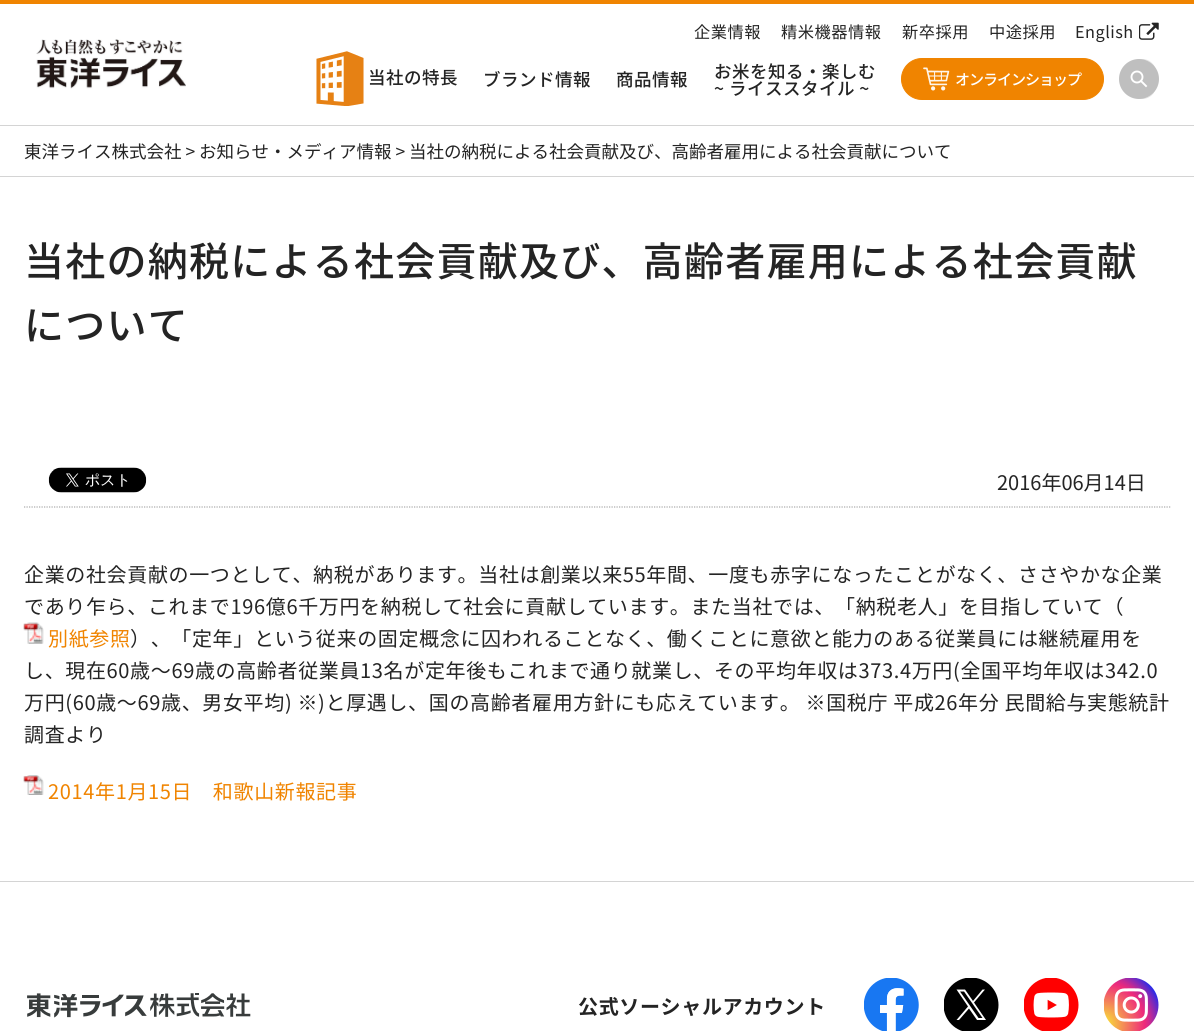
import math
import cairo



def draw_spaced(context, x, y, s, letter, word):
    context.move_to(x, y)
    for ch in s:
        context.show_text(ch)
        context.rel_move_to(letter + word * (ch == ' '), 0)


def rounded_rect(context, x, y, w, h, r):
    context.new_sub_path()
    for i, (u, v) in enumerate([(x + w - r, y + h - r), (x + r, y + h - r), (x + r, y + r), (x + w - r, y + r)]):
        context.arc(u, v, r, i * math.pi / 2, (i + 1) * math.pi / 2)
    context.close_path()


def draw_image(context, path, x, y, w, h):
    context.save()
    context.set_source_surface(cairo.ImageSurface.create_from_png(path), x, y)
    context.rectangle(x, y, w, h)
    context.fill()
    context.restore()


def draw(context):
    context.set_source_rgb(1, 1, 1)
    context.paint()
    context.set_source_rgb(240 / 255, 132 / 255, 0)
    context.rectangle(0, 0, 1194, 4)
    context.fill()
    context.set_source_rgb(212 / 255, 212 / 255, 212 / 255)
    context.rectangle(0, 125, 1194, 1)
    context.fill()
    draw_image(context, "images/1.png", 36, 39, 150, 50)
    draw_image(context, "images/2.png", 1139, 22, 20, 18)
    draw_image(context, "images/3.png", 316, 51, 48, 55)
    context.set_source_rgb(240 / 255, 132 / 255, 0)
    rounded_rect(context, 901.5, 58.5, 202, 41, 20.5)
    context.fill_preserve()
    context.set_line_width(1)
    context.stroke()
    draw_image(context, "images/4.png", 923, 67, 27, 24)
    rounded_rect(context, 1129.5, 59.5, 26, 39, 13)
    context.set_source_rgb(231 / 255, 231 / 255, 231 / 255)
    context.stroke()
    context.set_source_rgb(191 / 255, 191 / 255, 191 / 255)
    context.arc(1139, 79, 20, 0, 2 * math.pi)
    context.fill()
    context.new_path()
    context.move_to(1141, 81)
    context.line_to(1146, 86)
    context.set_source_rgb(1, 1, 1)
    context.set_line_width(1.9)
    context.set_line_cap(cairo.LineCap.SQUARE)
    context.stroke()
    context.arc(1137, 77, 5.5, 0, 2 * math.pi)
    context.set_line_cap(cairo.LineCap.BUTT)
    context.stroke()
    context.set_source_rgb(212 / 255, 212 / 255, 212 / 255)
    context.rectangle(0, 881, 1194, 1)
    context.fill()
    context.rectangle(0, 176, 1194, 1)
    context.fill()
    context.new_path()
    context.move_to(24, 507)
    context.line_to(1171, 507)
    context.set_source_rgb(170 / 255, 170 / 255, 170 / 255)
    context.set_line_width(1.2)
    context.set_dash([1.25, 1.25])
    context.stroke()
    draw_image(context, "images/5.png", 48, 467, 99, 26)
    draw_image(context, "images/6.png", 23, 622, 21, 22)
    draw_image(context, "images/7.png", 23, 775, 21, 20)
    draw_image(context, "images/11.png", 1104, 978, 55, 53)
    context.set_source_rgb(1, 1, 1)
    context.new_path()
    context.move_to(1145, 977.5)
    context.line_to(1152, 984.5)
    context.line_to(1151, 985.5)
    context.line_to(1144, 978)
    context.close_path()
    context.fill()
    draw_image(context, "images/8.png", 27, 993, 224, 25)
    draw_image(context, "images/9.png", 864, 978, 55, 53)
    context.save()
    context.rectangle(944, 978, 55, 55)
    context.clip()
    context.set_source_rgb(0, 0, 0)
    context.arc(971, 1005, 27.5, 0, 2 * math.pi)
    context.fill()
    context.restore()
    context.new_path()
    context.move_to(974, 1002.5)
    context.line_to(985, 989.5)
    context.line_to(982.5, 989.5)
    context.line_to(973, 1001)
    context.line_to(965, 989.5)
    context.line_to(956.5, 989.5)
    context.line_to(968, 1006.5)
    context.line_to(956.5, 1020)
    context.line_to(959, 1020)
    context.line_to(969, 1008.5)
    context.line_to(977, 1020)
    context.line_to(986, 1020)
    context.close_path()
    context.move_to(970.5, 1006.5)
    context.line_to(960, 991.5)
    context.line_to(964, 991.5)
    context.line_to(982.5, 1018)
    context.line_to(978.5, 1018)
    context.close_path()
    context.fill()
    draw_image(context, "images/10.png", 1024, 978, 55, 53)
    context.select_font_face("Noto Sans JP")
    context.set_font_size(16.25)
    context.set_source_rgb(36 / 255, 36 / 255, 36 / 255)
    draw_spaced(context, 694, 38, "企業情報", 0.5, 0)
    draw_spaced(context, 781, 38, "精米機器情報", 0.5, 0)
    draw_spaced(context, 902, 38, "新卒採用", 0.5, 0)
    draw_spaced(context, 989, 38, "中途採用", 0.5, 0)
    draw_spaced(context, 1075, 38, "English", 0.5, 0)
    context.select_font_face("Noto Sans JP Medium")
    context.set_font_size(17.5)
    draw_spaced(context, 368, 84, "当社の特長", 0.5, 0)
    draw_spaced(context, 483, 86, "ブランド情報", 0.5, 0)
    draw_spaced(context, 616, 86, "商品情報", 0.5, 0)
    draw_spaced(context, 714, 78, "お米を知る・楽しむ", 0.5, 0)
    draw_spaced(context, 714, 95, "~ ライススタイル ~", 0.5, 0)
    context.set_font_size(15)
    context.set_source_rgb(1, 1, 1)
    draw_spaced(context, 955, 85, "オンラインショップ", -1, 0)
    context.select_font_face("Noto Sans JP")
    context.set_font_size(17.5)
    context.set_source_rgb(36 / 255, 36 / 255, 36 / 255)
    context.move_to(24, 158)
    context.show_text("東洋ライス株式会社 > お知らせ・メディア情報 > 当社の納税による社会貢献及び、高齢者雇用による社会貢献について")
    context.select_font_face("Noto Sans JP Medium")
    context.set_font_size(40)
    draw_spaced(context, 24, 276, "当社の納税による社会貢献及び、高齢者雇用による社会貢献", 1.25, 0)
    draw_spaced(context, 24, 340, "について", 1.25, 0)
    context.select_font_face("Noto Sans JP")
    context.set_font_size(20)
    context.move_to(997, 490)
    context.show_text("2016年06月14日")
    draw_spaced(context, 24, 582, "企業の社会貢献の一つとして、納税があります。当社は創業以来55年間、一度も赤字になったことがなく、ささやかな企業", 0.65, 0)
    draw_spaced(context, 24, 614, "であり乍ら、これまで196億6千万円を納税して社会に貢献しています。また当社では、「納税老人」を目指していて（", 0.65, 0)
    context.set_source_rgb(240 / 255, 132 / 255, 0)
    draw_spaced(context, 48, 646, "別紙参照", 0.65, 0)
    context.set_source_rgb(36 / 255, 36 / 255, 36 / 255)
    draw_spaced(context, 130, 646, "）、「定年」という従来の固定概念に囚われることなく、働くことに意欲と能力のある従業員には継続雇用を", 0.65, 0)
    draw_spaced(context, 24, 678, "し、現在60歳～69歳の高齢者従業員13名が定年後もこれまで通り就業し、その平均年収は373.4万円(全国平均年収は342.0", 0.65, 0)
    draw_spaced(context, 24, 710, "万円(60歳～69歳、男女平均) ※)と厚遇し、国の高齢者雇用方針にも応えています。 ※国税庁 平成26年分 民間給与実態統計", 0.65, 0)
    draw_spaced(context, 24, 742, "調査より", 0.65, 0)
    context.set_source_rgb(240 / 255, 132 / 255, 0)
    draw_spaced(context, 48, 799, "2014年1月15日　和歌山新報記事", 0.65, 0)
    context.select_font_face("Noto Sans JP", cairo.FontSlant.NORMAL, cairo.FontWeight.BOLD)
    context.set_source_rgb(36 / 255, 36 / 255, 36 / 255)
    draw_spaced(context, 578, 1014, "公式ソーシャルアカウント", 0.65, 0)


surface = cairo.ImageSurface(cairo.Format.RGB24, 1194, 1031)
context = cairo.Context(surface)
options = cairo.FontOptions()
options.set_hint_metrics(cairo.HintMetrics.OFF)
options.set_hint_style(cairo.HintStyle.NONE)
context.set_font_options(options)
context.set_miter_limit(4)
draw(context)
surface.write_to_png("out.png")
